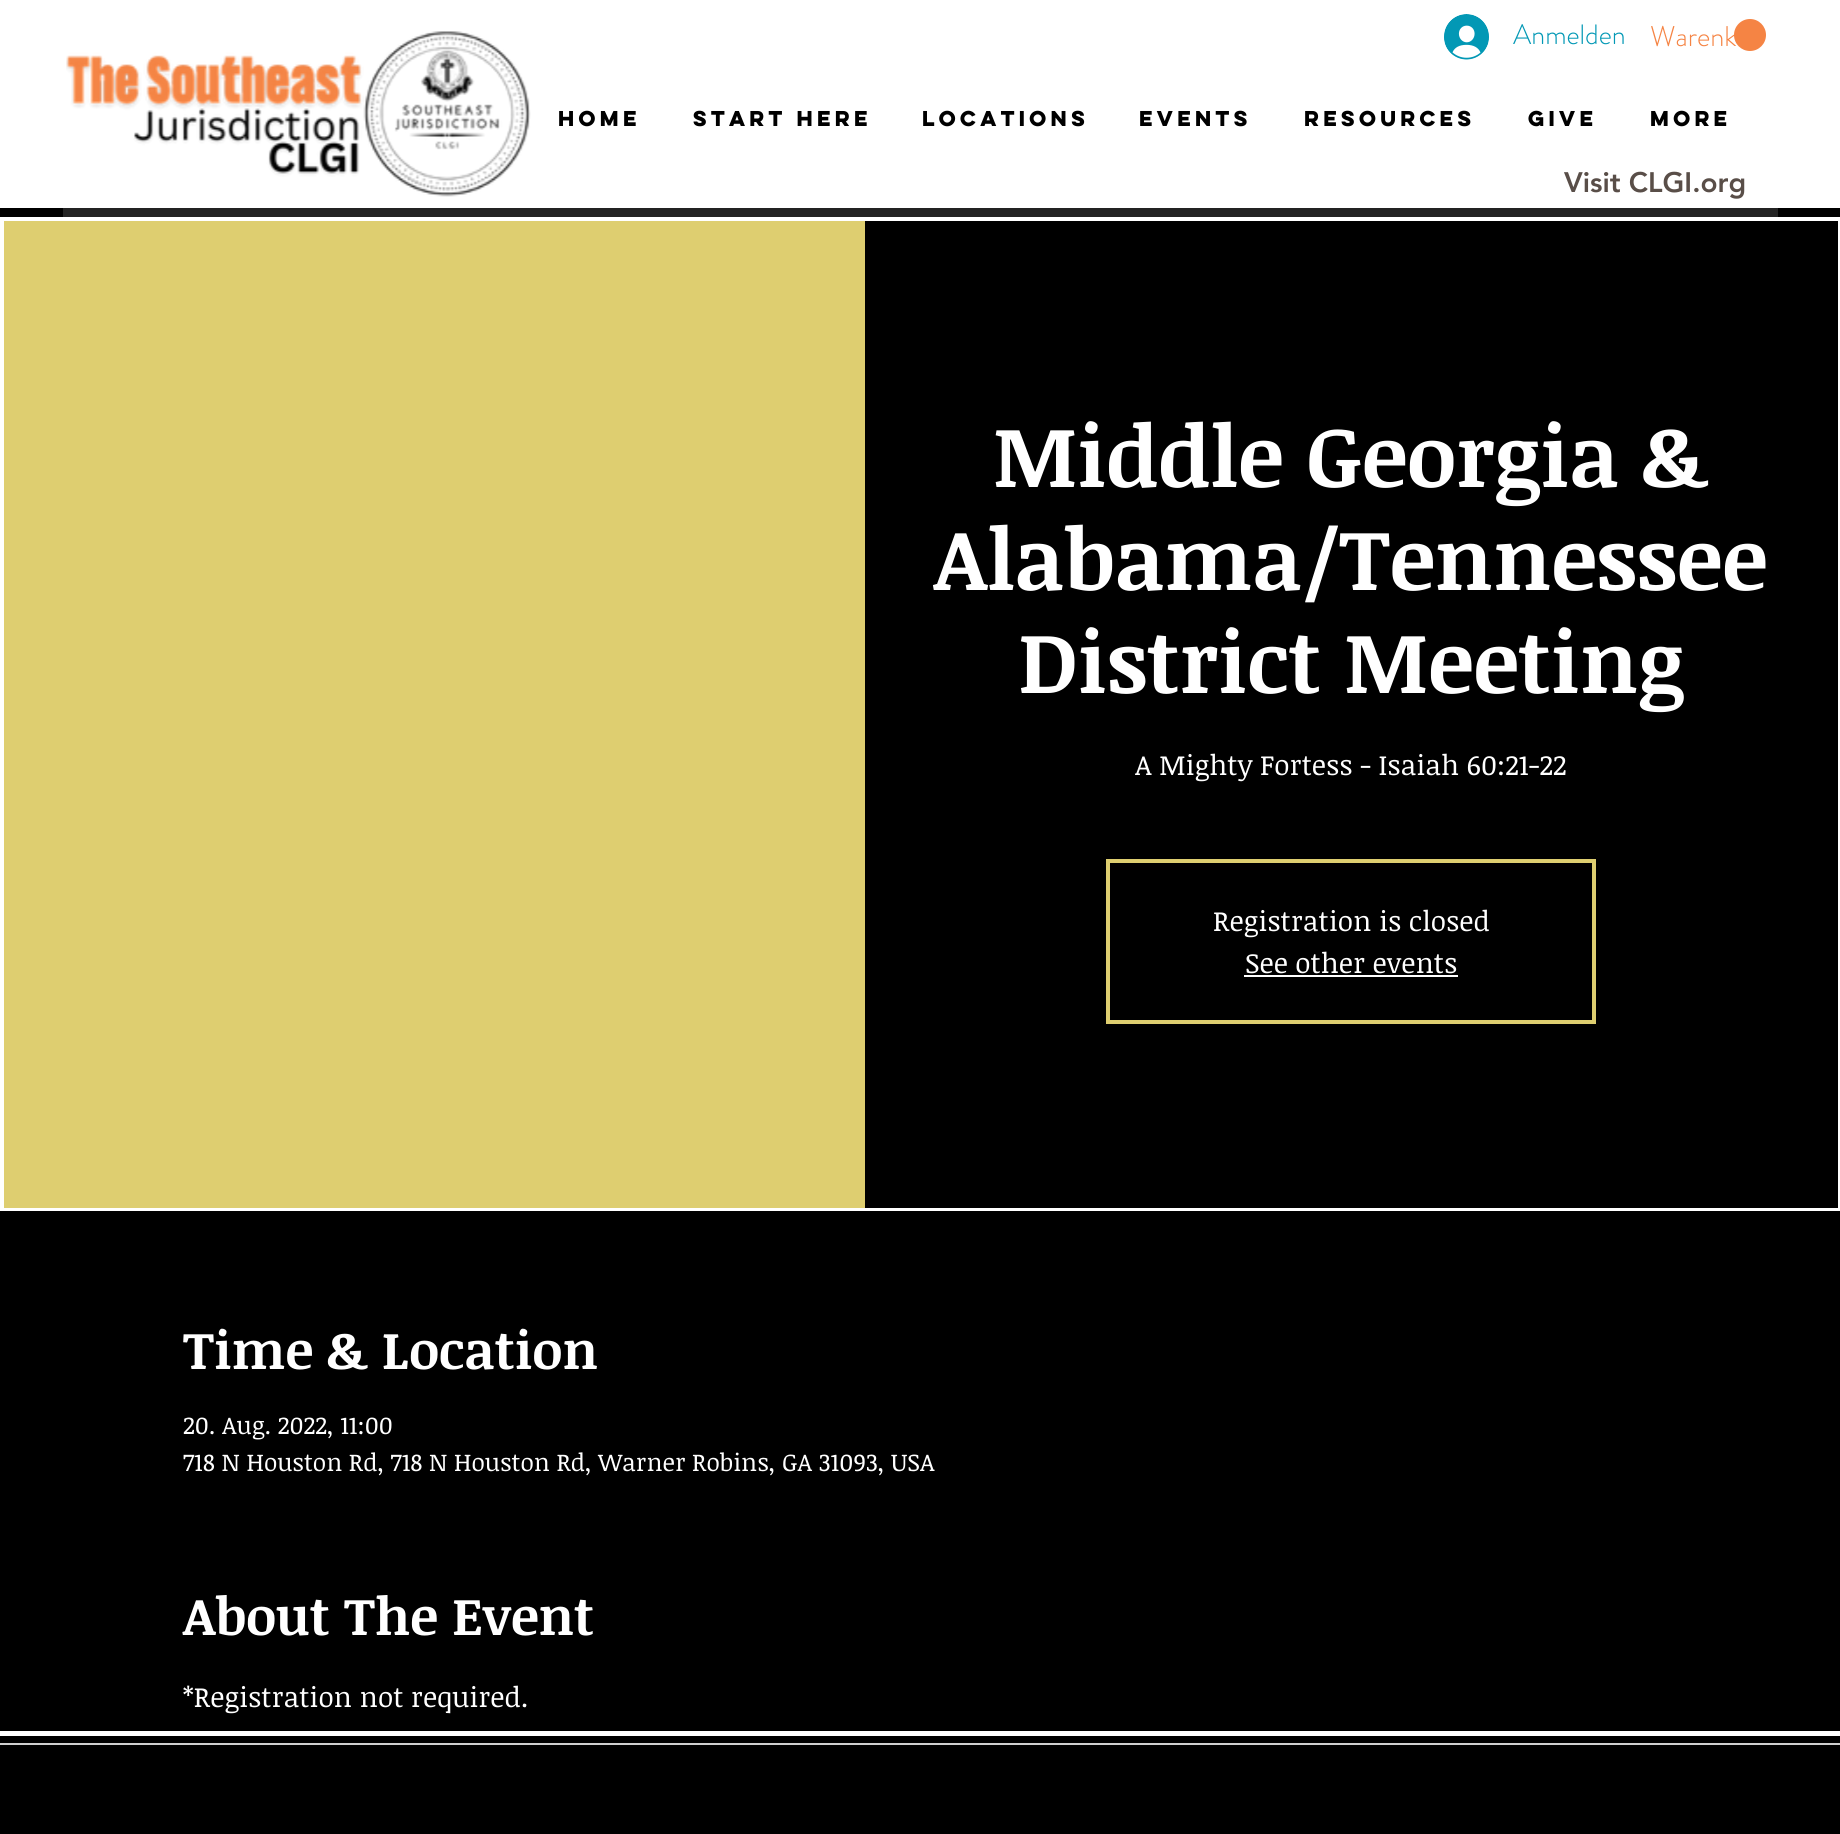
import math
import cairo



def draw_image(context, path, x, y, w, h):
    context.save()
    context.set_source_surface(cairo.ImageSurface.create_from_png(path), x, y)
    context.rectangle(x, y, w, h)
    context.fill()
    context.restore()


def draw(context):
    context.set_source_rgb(0, 0, 0)
    context.paint()
    context.set_source_rgb(1, 1, 1)
    context.rectangle(0, 0, 1840, 208)
    context.fill()
    draw_image(context, "images/1.png", 66, 31, 465, 166)
    draw_image(context, "images/2.png", 1444, 14, 45, 46)
    context.set_source_rgb(245 / 255, 132 / 255, 68 / 255)
    context.arc(1750, 35, 16, 0, 2 * math.pi)
    context.fill()
    context.set_source_rgb(35 / 255, 35 / 255, 35 / 255)
    context.rectangle(63, 208, 1715, 9)
    context.fill()
    context.rectangle(2, 219, 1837, 990)
    context.set_source_rgb(1, 1, 1)
    context.set_line_width(4)
    context.stroke()
    context.set_source_rgb(222 / 255, 206 / 255, 112 / 255)
    context.rectangle(4, 221, 861, 987)
    context.fill()
    context.set_source_rgb(0, 0, 0)
    context.rectangle(865, 221, 973, 987)
    context.fill()
    context.rectangle(1108, 861, 486, 161)
    context.set_source_rgb(222 / 255, 206 / 255, 112 / 255)
    context.stroke()
    context.set_source_rgb(1, 1, 1)
    context.rectangle(1244, 975, 214, 2)
    context.fill()
    context.rectangle(0, 1731, 1840, 5)
    context.fill()
    context.set_source_rgb(207 / 255, 207 / 255, 207 / 255)
    context.rectangle(0, 1743, 1840, 2)
    context.fill()
    context.select_font_face("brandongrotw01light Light")
    context.set_font_size(28)
    context.set_source_rgb(2 / 255, 152 / 255, 181 / 255)
    context.move_to(1513, 44)
    context.show_text("Anmelden")
    context.set_font_size(28.5)
    context.set_source_rgb(245 / 255, 132 / 255, 68 / 255)
    context.move_to(1650, 46)
    context.show_text("Warenk")
    context.select_font_face("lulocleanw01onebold", cairo.FontSlant.NORMAL, cairo.FontWeight.BOLD)
    context.set_font_size(19.25)
    context.set_source_rgb(0, 0, 0)
    context.move_to(558, 126)
    context.show_text("HOME")
    context.move_to(693, 126)
    context.show_text("START HERE")
    context.move_to(922, 126)
    context.show_text("Locations")
    context.move_to(1139, 126)
    context.show_text("EVENTS")
    context.move_to(1304, 126)
    context.show_text("RESOURCES")
    context.move_to(1528, 126)
    context.show_text("GIVE")
    context.move_to(1650, 126)
    context.show_text("More")
    context.select_font_face("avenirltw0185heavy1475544 Black")
    context.set_font_size(28)
    context.set_source_rgb(89 / 255, 78 / 255, 72 / 255)
    context.move_to(1564, 192)
    context.show_text("Visit CLGI.org")
    context.select_font_face("Noticia Text", cairo.FontSlant.NORMAL, cairo.FontWeight.BOLD)
    context.set_font_size(85.75)
    context.set_source_rgb(1, 1, 1)
    context.move_to(993, 487)
    context.show_text("Middle Georgia &")
    context.move_to(934, 590)
    context.show_text("Alabama/Tennessee")
    context.move_to(1018, 693)
    context.show_text("District Meeting")
    context.select_font_face("Noticia Text")
    context.set_font_size(28)
    context.move_to(1135, 775)
    context.show_text("A Mighty Fortess - Isaiah 60:21-22")
    context.move_to(1213, 931)
    context.show_text("Registration is closed")
    context.move_to(1245, 973)
    context.show_text("See other events")
    context.select_font_face("Noticia Text", cairo.FontSlant.NORMAL, cairo.FontWeight.BOLD)
    context.set_font_size(52.5)
    context.move_to(183, 1369)
    context.show_text("Time & Location")
    context.select_font_face("Noticia Text")
    context.set_font_size(24.5)
    context.move_to(183, 1434)
    context.show_text("20. Aug. 2022, 11:00")
    context.move_to(183, 1471)
    context.show_text("718 N Houston Rd, 718 N Houston Rd, Warner Robins, GA 31093, USA")
    context.select_font_face("Noticia Text", cairo.FontSlant.NORMAL, cairo.FontWeight.BOLD)
    context.set_font_size(52.5)
    context.move_to(183, 1635)
    context.show_text("About The Event")
    context.select_font_face("Noticia Text")
    context.set_font_size(28)
    context.move_to(183, 1707)
    context.show_text("*Registration not required.")


surface = cairo.ImageSurface(cairo.Format.RGB24, 1840, 1834)
context = cairo.Context(surface)
options = cairo.FontOptions()
options.set_hint_metrics(cairo.HintMetrics.OFF)
options.set_hint_style(cairo.HintStyle.NONE)
context.set_font_options(options)
context.set_miter_limit(4)
draw(context)
surface.write_to_png("out.png")
